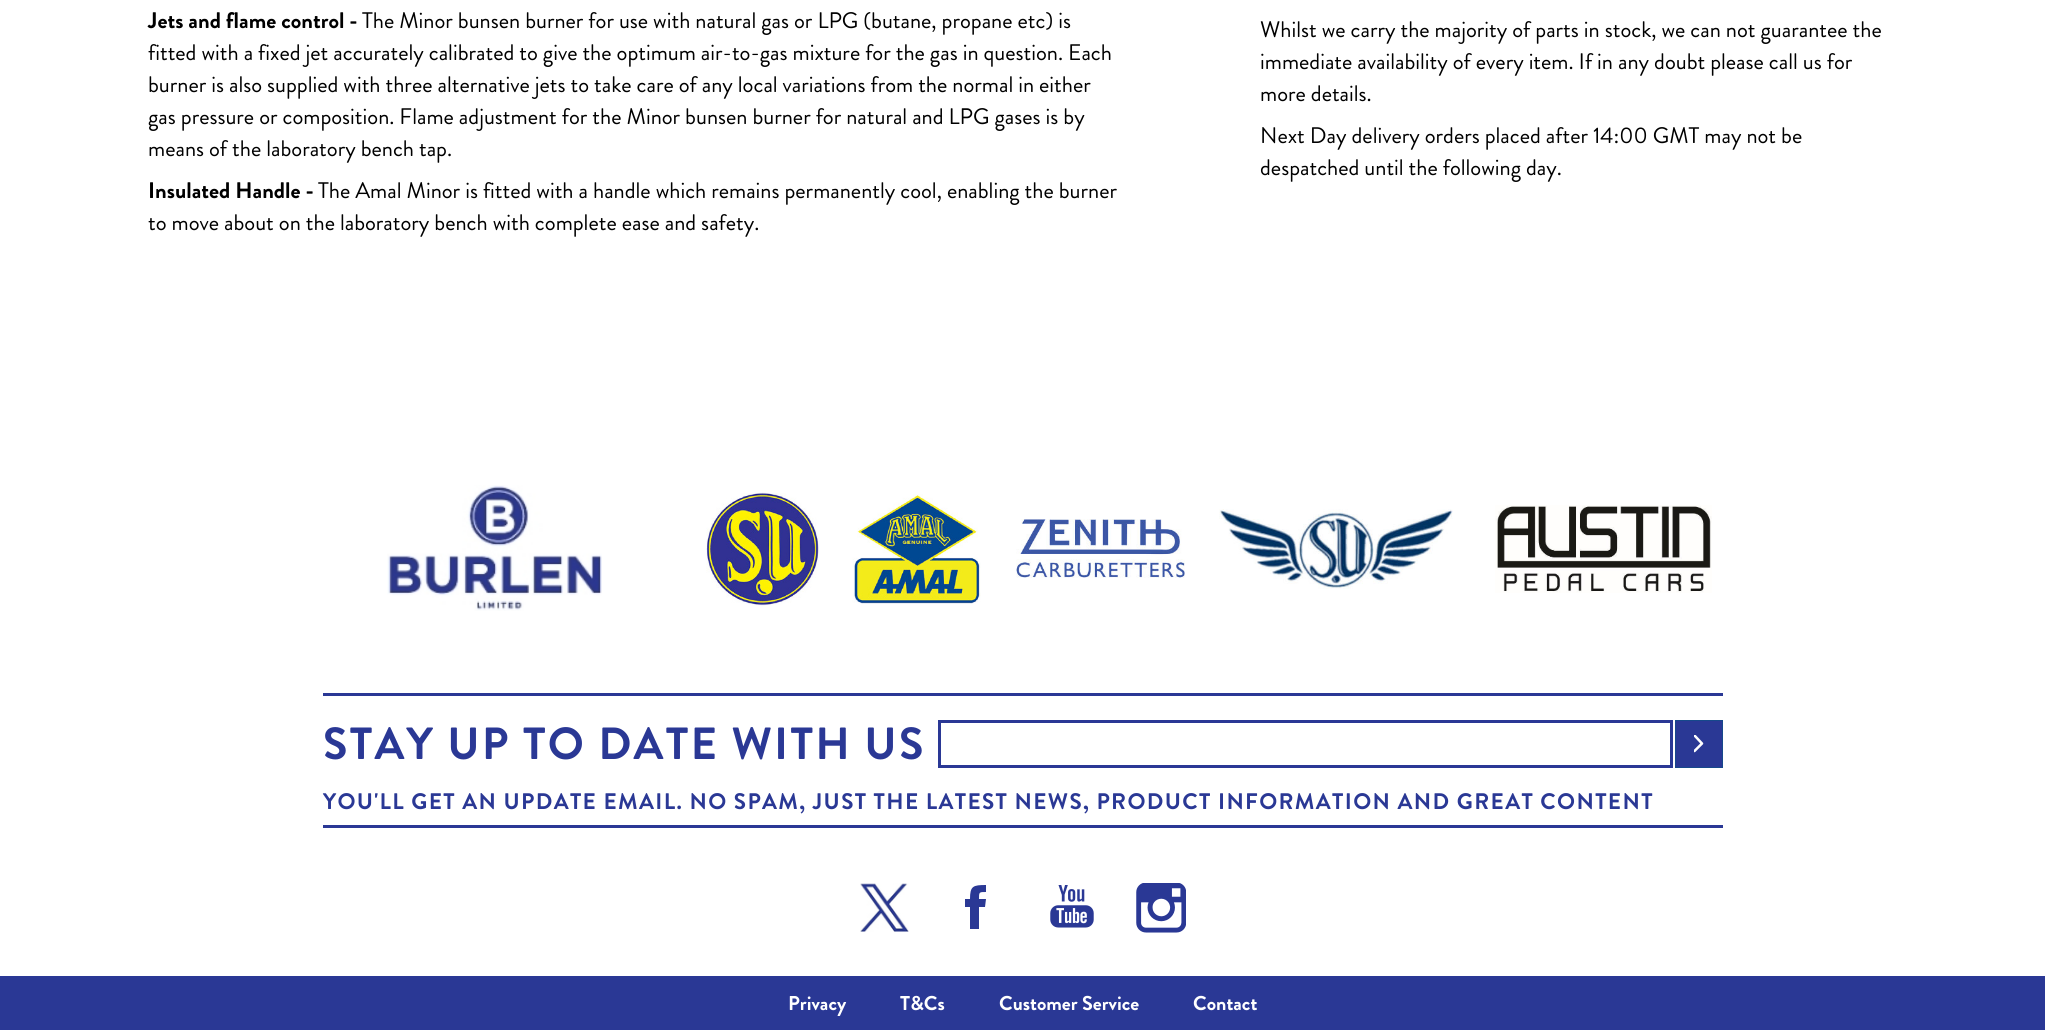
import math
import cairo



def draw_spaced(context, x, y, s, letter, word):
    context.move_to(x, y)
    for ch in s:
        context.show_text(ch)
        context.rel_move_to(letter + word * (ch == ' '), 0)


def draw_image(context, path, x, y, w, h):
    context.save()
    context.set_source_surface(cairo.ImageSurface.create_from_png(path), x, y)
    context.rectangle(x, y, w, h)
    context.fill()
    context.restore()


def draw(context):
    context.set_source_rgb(1, 1, 1)
    context.paint()
    draw_image(context, "images/1.png", 387, 485, 215, 126)
    draw_image(context, "images/2.png", 706, 492, 113, 114)
    draw_image(context, "images/3.png", 852, 494, 129, 110)
    draw_image(context, "images/4.png", 1016, 519, 169, 59)
    draw_image(context, "images/5.png", 1219, 509, 234, 80)
    draw_image(context, "images/6.png", 1495, 505, 217, 88)
    context.set_source_rgb(42 / 255, 56 / 255, 149 / 255)
    context.rectangle(323, 693, 1400, 3)
    context.fill()
    context.rectangle(323, 825, 1400, 3)
    context.fill()
    context.rectangle(939.5, 721.5, 732, 45)
    context.set_line_width(3)
    context.stroke()
    context.rectangle(1676, 721, 46, 46)
    context.fill()
    context.save()
    context.rectangle(1694, 735, 10, 18)
    context.clip()
    context.new_path()
    context.move_to(1694.5, 735.5)
    context.line_to(1702, 743.5)
    context.line_to(1694.5, 751)
    context.set_source_rgb(1, 1, 1)
    context.set_line_width(2.5)
    context.set_line_cap(cairo.LineCap.ROUND)
    context.set_line_join(cairo.LineJoin.ROUND)
    context.stroke()
    context.restore()
    context.rectangle(1675.5, 720.5, 47, 47)
    context.set_source_rgb(22 / 255, 73 / 255, 139 / 255)
    context.set_line_width(1)
    context.stroke()
    draw_image(context, "images/7.png", 860, 883, 49, 49)
    context.set_source_rgb(42 / 255, 56 / 255, 149 / 255)
    context.new_path()
    context.move_to(986, 899)
    context.line_to(979, 899)
    context.curve_to(979, 892, 979, 892, 986, 892)
    context.line_to(986, 885)
    context.curve_to(973, 885, 970, 886, 970, 899)
    context.line_to(965, 899)
    context.line_to(965, 907)
    context.line_to(970, 907)
    context.line_to(970, 929)
    context.line_to(979, 929)
    context.line_to(979, 907)
    context.line_to(985, 907)
    context.close_path()
    context.fill()
    draw_image(context, "images/8.png", 1050, 885, 44, 43)
    draw_image(context, "images/9.png", 1136, 883, 50, 50)
    context.rectangle(0, 976, 2045, 54)
    context.fill()
    context.select_font_face("Brandon Grotesque", cairo.FontSlant.NORMAL, cairo.FontWeight.BOLD)
    context.set_font_size(22.5)
    context.set_source_rgb(0, 0, 0)
    context.move_to(148, 28)
    context.show_text("Jets and flame control -")
    context.select_font_face("Brandon Grotesque")
    context.move_to(362, 28)
    context.show_text("The Minor bunsen burner for use with natural gas or LPG (butane, propane etc) is")
    context.move_to(148, 60)
    context.show_text("fitted with a fixed jet accurately calibrated to give the optimum air-to-gas mixture for the gas in question. Each")
    context.move_to(148, 92)
    context.show_text("burner is also supplied with three alternative jets to take care of any local variations from the normal in either")
    context.move_to(148, 124)
    context.show_text("gas pressure or composition. Flame adjustment for the Minor bunsen burner for natural and LPG gases is by")
    context.move_to(148, 156)
    context.show_text("means of the laboratory bench tap.")
    context.select_font_face("Brandon Grotesque", cairo.FontSlant.NORMAL, cairo.FontWeight.BOLD)
    context.move_to(148, 198)
    context.show_text("Insulated Handle -")
    context.select_font_face("Brandon Grotesque")
    context.move_to(318, 198)
    context.show_text("The Amal Minor is fitted with a handle which remains permanently cool, enabling the burner")
    context.move_to(148, 230)
    context.show_text("to move about on the laboratory bench with complete ease and safety.")
    context.move_to(1260, 37)
    context.show_text("Whilst we carry the majority of parts in stock, we can not guarantee the")
    context.move_to(1260, 69)
    context.show_text("immediate availability of every item. If in any doubt please call us for")
    context.move_to(1260, 101)
    context.show_text("more details.")
    context.move_to(1260, 143)
    context.show_text("Next Day delivery orders placed after 14:00 GMT may not be")
    context.move_to(1260, 175)
    context.show_text("despatched until the following day.")
    context.select_font_face("Brandon Grotesque", cairo.FontSlant.NORMAL, cairo.FontWeight.BOLD)
    context.set_font_size(45)
    context.set_source_rgb(42 / 255, 56 / 255, 149 / 255)
    draw_spaced(context, 323, 759, "STAY UP TO DATE WITH US", 2.25, 0)
    context.set_font_size(22.5)
    draw_spaced(context, 323, 809, "YOU'LL GET AN UPDATE EMAIL. NO SPAM, JUST THE LATEST NEWS, PRODUCT INFORMATION AND GREAT CONTENT", 1.35, 0)
    context.set_font_size(20)
    context.set_source_rgb(1, 1, 1)
    context.move_to(788, 1010)
    context.show_text("Privacy")
    context.move_to(900, 1010)
    context.show_text("T&Cs")
    context.move_to(999, 1010)
    context.show_text("Customer Service")
    context.move_to(1193, 1010)
    context.show_text("Contact")


surface = cairo.ImageSurface(cairo.Format.RGB24, 2045, 1030)
context = cairo.Context(surface)
options = cairo.FontOptions()
options.set_hint_metrics(cairo.HintMetrics.OFF)
options.set_hint_style(cairo.HintStyle.NONE)
context.set_font_options(options)
context.set_miter_limit(4)
draw(context)
surface.write_to_png("out.png")
